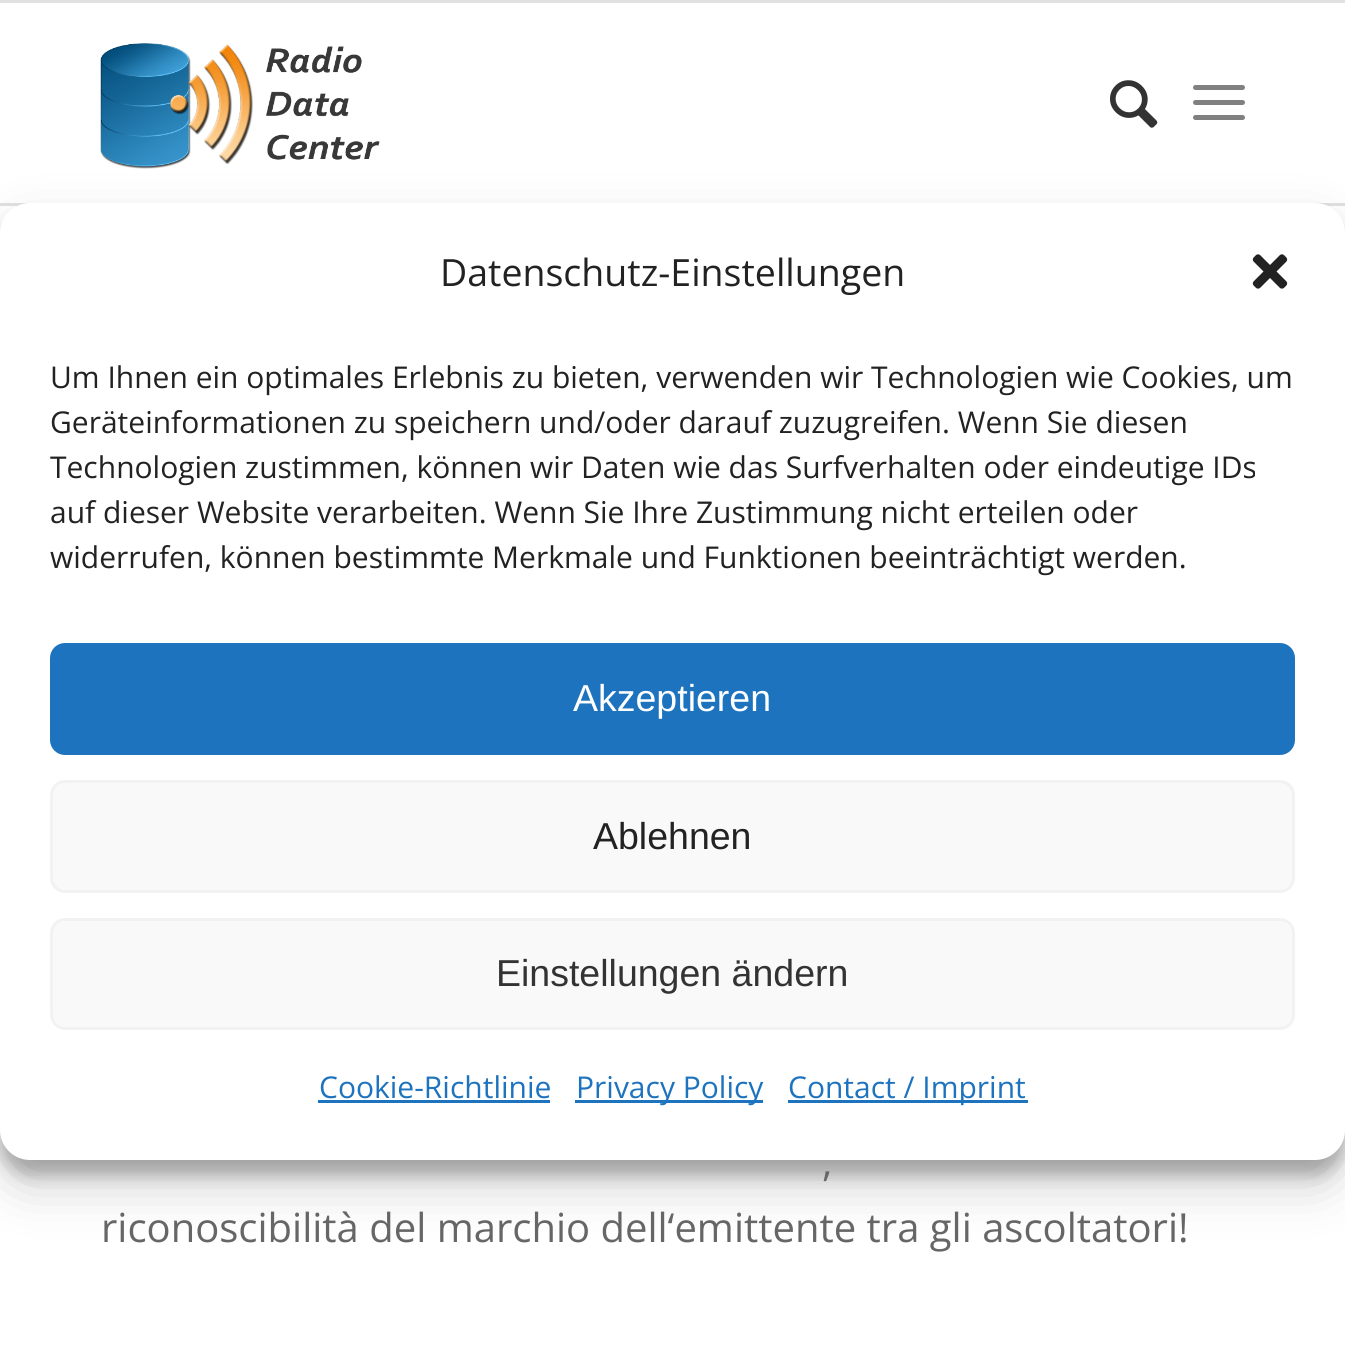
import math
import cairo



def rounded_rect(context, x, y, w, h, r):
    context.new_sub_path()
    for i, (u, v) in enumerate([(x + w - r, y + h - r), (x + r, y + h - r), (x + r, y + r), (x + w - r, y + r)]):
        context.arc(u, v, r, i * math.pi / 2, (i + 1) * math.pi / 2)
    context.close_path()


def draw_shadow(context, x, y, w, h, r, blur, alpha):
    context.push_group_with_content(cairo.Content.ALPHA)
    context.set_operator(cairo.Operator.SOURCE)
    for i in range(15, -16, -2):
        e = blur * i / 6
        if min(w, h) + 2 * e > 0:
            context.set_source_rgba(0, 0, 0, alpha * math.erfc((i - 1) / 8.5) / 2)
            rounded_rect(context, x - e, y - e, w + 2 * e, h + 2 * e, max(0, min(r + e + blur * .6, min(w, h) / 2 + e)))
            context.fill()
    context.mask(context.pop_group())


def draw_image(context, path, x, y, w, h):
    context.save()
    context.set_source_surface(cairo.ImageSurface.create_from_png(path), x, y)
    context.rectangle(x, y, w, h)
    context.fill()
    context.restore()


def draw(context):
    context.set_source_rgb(1, 1, 1)
    context.paint()
    context.set_source_rgb(225 / 255, 225 / 255, 225 / 255)
    context.rectangle(0, 203, 1345, 3)
    context.fill()
    context.set_source_rgb(0, 0, 0)
    draw_shadow(context, 0, 218, 1345, 957, 30, 7.5, 0.23)
    draw_image(context, "images/2.png", 100, 43, 280, 126)
    draw_shadow(context, 0, 228, 1345, 957, 30, 25, 0.19)
    context.set_source_rgb(1, 1, 1)
    rounded_rect(context, 0, 203, 1345, 957, 30)
    context.fill()
    draw_image(context, "images/1.png", 1252, 254, 36, 35)
    context.set_source_rgb(30 / 255, 115 / 255, 190 / 255)
    rounded_rect(context, 51.5, 644.5, 1242, 109, 13.5)
    context.fill_preserve()
    context.set_line_width(3)
    context.stroke()
    context.set_source_rgb(249 / 255, 249 / 255, 249 / 255)
    rounded_rect(context, 51.5, 781.5, 1242, 110, 13.5)
    context.fill_preserve()
    context.set_source_rgb(242 / 255, 242 / 255, 242 / 255)
    context.stroke()
    context.set_source_rgb(249 / 255, 249 / 255, 249 / 255)
    rounded_rect(context, 51.5, 919.5, 1242, 109, 13.5)
    context.fill_preserve()
    context.set_source_rgb(242 / 255, 242 / 255, 242 / 255)
    context.stroke()
    context.set_source_rgb(30 / 255, 115 / 255, 190 / 255)
    context.rectangle(318, 1100, 232, 3)
    context.fill()
    context.rectangle(575, 1100, 188, 3)
    context.fill()
    context.rectangle(788, 1100, 240, 3)
    context.fill()
    context.set_source_rgb(225 / 255, 225 / 255, 225 / 255)
    context.rectangle(0, 0, 1345, 3)
    context.fill()
    draw_image(context, "images/3.png", 1110, 80, 48, 48)
    context.set_source_rgb(128 / 255, 128 / 255, 128 / 255)
    rounded_rect(context, 1193, 100, 52, 5, 2.5)
    context.fill()
    rounded_rect(context, 1193, 85, 52, 5, 2.5)
    context.fill()
    rounded_rect(context, 1193, 115, 52, 5, 2.5)
    context.fill()
    context.select_font_face("Open Sans")
    context.set_font_size(37.5)
    context.set_source_rgb(34 / 255, 34 / 255, 34 / 255)
    context.move_to(440, 286)
    context.show_text("Datenschutz-Einstellungen")
    context.set_font_size(30)
    context.move_to(50, 388)
    context.show_text("Um Ihnen ein optimales Erlebnis zu bieten, verwenden wir Technologien wie Cookies, um")
    context.move_to(50, 433)
    context.show_text("Geräteinformationen zu speichern und/oder darauf zuzugreifen. Wenn Sie diesen")
    context.move_to(50, 478)
    context.show_text("Technologien zustimmen, können wir Daten wie das Surfverhalten oder eindeutige IDs")
    context.move_to(50, 523)
    context.show_text("auf dieser Website verarbeiten. Wenn Sie Ihre Zustimmung nicht erteilen oder")
    context.move_to(50, 568)
    context.show_text("widerrufen, können bestimmte Merkmale und Funktionen beeinträchtigt werden.")
    context.select_font_face("Liberation Sans")
    context.set_font_size(37.5)
    context.set_source_rgb(1, 1, 1)
    context.move_to(573, 711)
    context.show_text("Akzeptieren")
    context.set_source_rgb(34 / 255, 34 / 255, 34 / 255)
    context.move_to(593, 849)
    context.show_text("Ablehnen")
    context.set_source_rgb(51 / 255, 51 / 255, 51 / 255)
    context.move_to(496, 986)
    context.show_text("Einstellungen ändern")
    context.select_font_face("Open Sans")
    context.set_font_size(30)
    context.set_source_rgb(30 / 255, 115 / 255, 190 / 255)
    context.move_to(319, 1098)
    context.show_text("Cookie-Richtlinie")
    context.move_to(576, 1098)
    context.show_text("Privacy Policy")
    context.move_to(788, 1098)
    context.show_text("Contact / Imprint")
    context.set_font_size(40)
    context.set_source_rgb(102 / 255, 102 / 255, 102 / 255)
    context.move_to(822, 1176)
    context.show_text(",")
    context.move_to(101, 1242)
    context.show_text("riconoscibilità del marchio dell‘emittente tra gli ascoltatori!")


surface = cairo.ImageSurface(cairo.Format.RGB24, 1345, 1359)
context = cairo.Context(surface)
options = cairo.FontOptions()
options.set_hint_metrics(cairo.HintMetrics.OFF)
options.set_hint_style(cairo.HintStyle.NONE)
context.set_font_options(options)
context.set_miter_limit(4)
draw(context)
surface.write_to_png("out.png")
